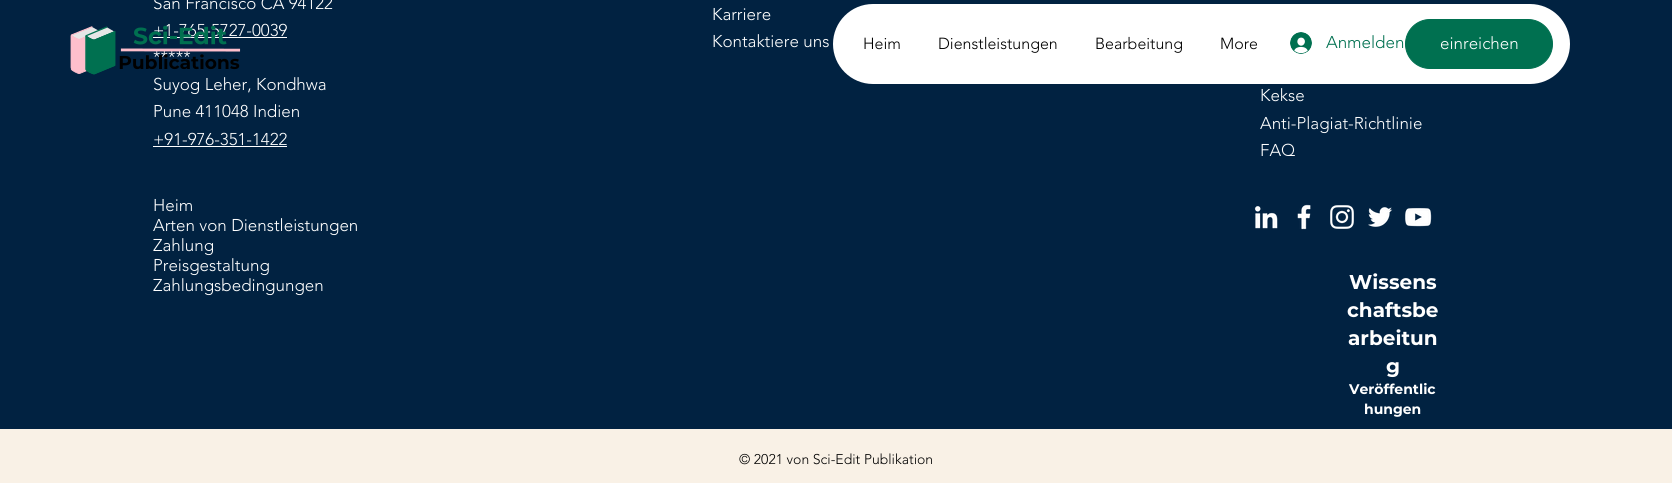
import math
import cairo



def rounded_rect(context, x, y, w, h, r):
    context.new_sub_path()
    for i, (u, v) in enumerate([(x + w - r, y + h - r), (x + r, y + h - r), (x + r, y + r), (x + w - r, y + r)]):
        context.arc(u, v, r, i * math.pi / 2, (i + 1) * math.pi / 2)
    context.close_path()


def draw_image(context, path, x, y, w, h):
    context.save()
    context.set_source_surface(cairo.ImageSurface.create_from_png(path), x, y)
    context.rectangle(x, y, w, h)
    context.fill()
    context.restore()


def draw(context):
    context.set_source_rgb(249 / 255, 241 / 255, 230 / 255)
    context.paint()
    context.set_source_rgb(1 / 255, 34 / 255, 65 / 255)
    context.rectangle(0, 0, 1672, 429)
    context.fill()
    context.set_source_rgb(1, 1, 1)
    context.rectangle(153, 37, 134, 1)
    context.fill()
    context.rectangle(153, 146, 134, 1)
    context.fill()
    draw_image(context, "images/1.png", 1254, 206, 24, 23)
    draw_image(context, "images/2.png", 1297, 204, 14, 26)
    draw_image(context, "images/3.png", 1330, 205, 24, 24)
    draw_image(context, "images/4.png", 1368, 207, 25, 20)
    draw_image(context, "images/5.png", 1405, 208, 27, 19)
    rounded_rect(context, 833, 4, 737, 80, 40)
    context.fill()
    draw_image(context, "images/7.png", 1290, 32, 22, 22)
    context.set_source_rgb(0, 112 / 255, 80 / 255)
    rounded_rect(context, 1405.5, 19.5, 147, 49, 24.5)
    context.fill_preserve()
    context.set_line_width(1)
    context.stroke()
    context.select_font_face("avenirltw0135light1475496 Light")
    context.set_font_size(17)
    context.set_source_rgb(1, 1, 1)
    context.move_to(153, 9)
    context.show_text("San Francisco CA 94122")
    context.move_to(153, 36)
    context.show_text("+1-765-5727-0039")
    context.move_to(153, 63)
    context.show_text("*****")
    context.move_to(153, 90)
    context.show_text("Suyog Leher, Kondhwa")
    context.move_to(153, 117)
    context.show_text("Pune 411048 Indien")
    context.move_to(153, 145)
    context.show_text("+91-976-351-1422")
    context.move_to(153, 211)
    context.show_text("Heim")
    context.move_to(153, 231)
    context.show_text("Arten von Dienstleistungen")
    context.move_to(153, 251)
    context.show_text("Zahlung")
    context.move_to(153, 271)
    context.show_text("Preisgestaltung")
    context.move_to(153, 291)
    context.show_text("Zahlungsbedingungen")
    context.move_to(712, 20)
    context.show_text("Karriere")
    context.move_to(712, 47)
    context.show_text("Kontaktiere uns")
    context.move_to(1260, 101)
    context.show_text("Kekse")
    context.move_to(1260, 129)
    context.show_text("Anti-Plagiat-Richtlinie")
    context.move_to(1260, 156)
    context.show_text("FAQ")
    context.select_font_face("Montserrat", cairo.FontSlant.NORMAL, cairo.FontWeight.BOLD)
    context.set_font_size(20)
    context.move_to(1349, 289)
    context.show_text("Wissens")
    context.move_to(1347, 317)
    context.show_text("chaftsbe")
    context.move_to(1348, 345)
    context.show_text("arbeitun")
    context.move_to(1386, 373)
    context.show_text("g")
    context.set_font_size(14)
    context.move_to(1349, 394)
    context.show_text("Veröffentlic")
    context.move_to(1364, 414)
    context.show_text("hungen")
    context.select_font_face("avenirltw0135light1475496 Light")
    context.set_source_rgb(0, 0, 0)
    context.move_to(739, 464)
    context.show_text("© 2021 von Sci-Edit Publikation")
    draw_image(context, "images/6.png", 70, 25, 171, 50)
    context.set_font_size(16)
    context.move_to(863, 49)
    context.show_text("Heim")
    context.move_to(938, 49)
    context.show_text("Dienstleistungen")
    context.move_to(1095, 49)
    context.show_text("Bearbeitung")
    context.move_to(1220, 49)
    context.show_text("More")
    context.set_font_size(17)
    context.set_source_rgb(0, 112 / 255, 80 / 255)
    context.move_to(1326, 48)
    context.show_text("Anmelden")
    context.set_source_rgb(1, 1, 1)
    context.move_to(1440, 49)
    context.show_text("einreichen")


surface = cairo.ImageSurface(cairo.Format.RGB24, 1672, 483)
context = cairo.Context(surface)
options = cairo.FontOptions()
options.set_hint_metrics(cairo.HintMetrics.OFF)
options.set_hint_style(cairo.HintStyle.NONE)
context.set_font_options(options)
context.set_miter_limit(4)
draw(context)
surface.write_to_png("out.png")
